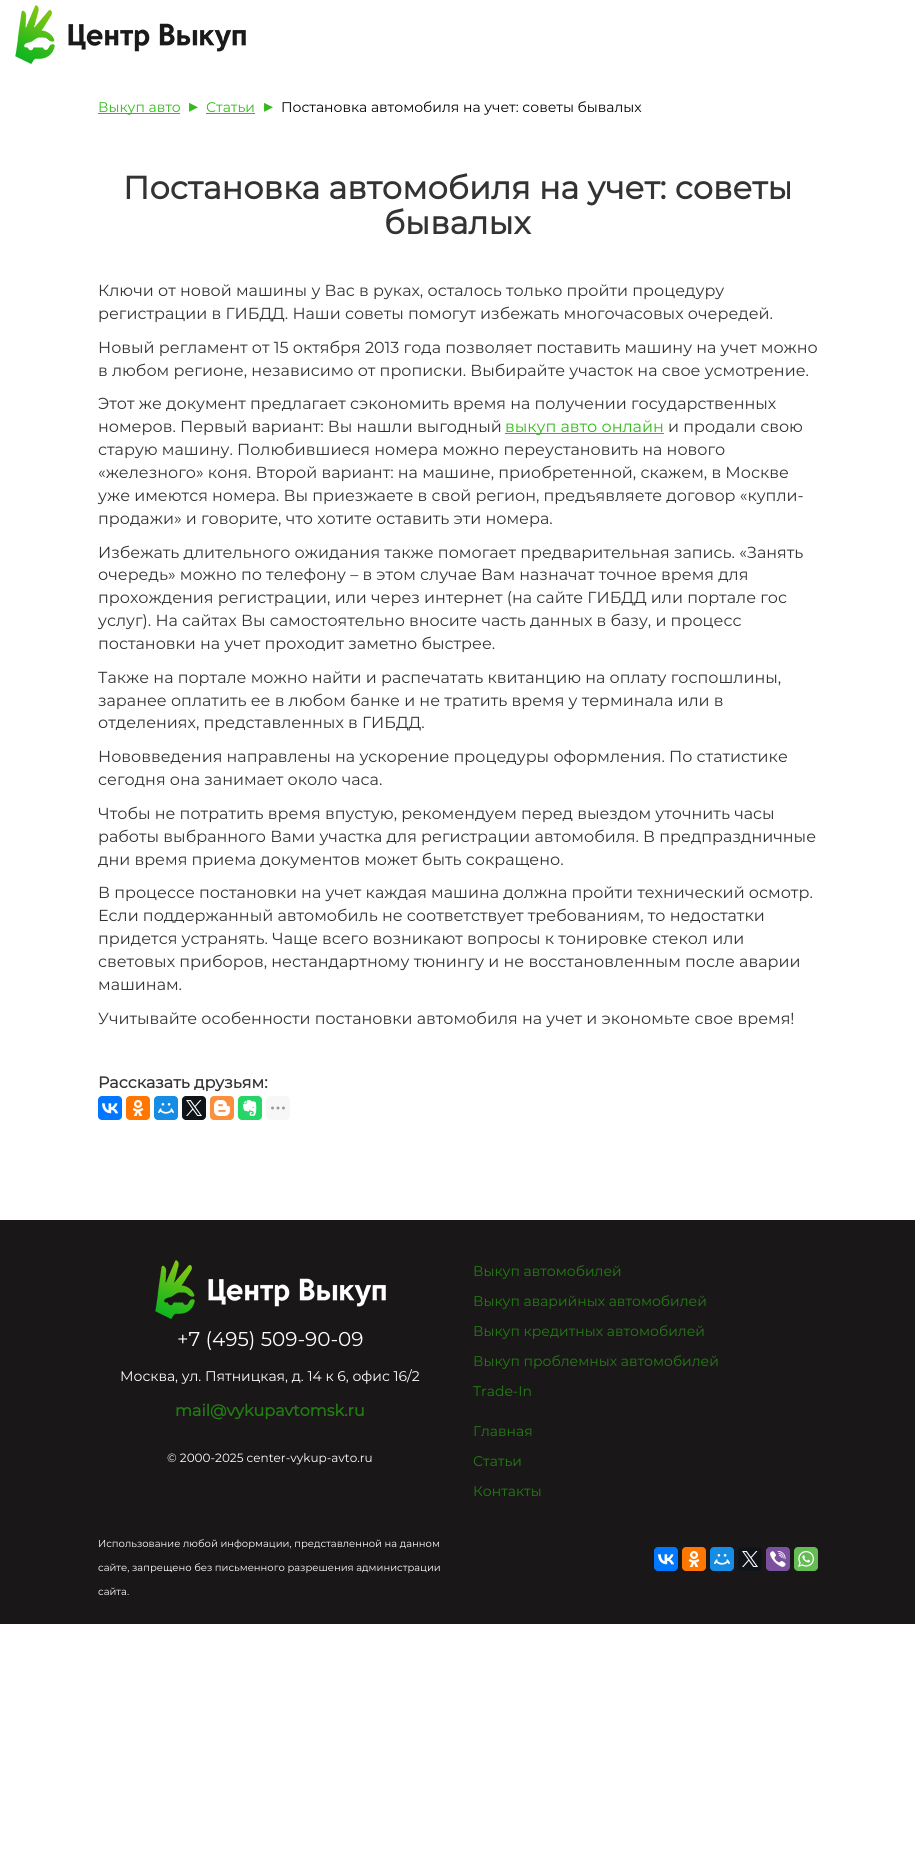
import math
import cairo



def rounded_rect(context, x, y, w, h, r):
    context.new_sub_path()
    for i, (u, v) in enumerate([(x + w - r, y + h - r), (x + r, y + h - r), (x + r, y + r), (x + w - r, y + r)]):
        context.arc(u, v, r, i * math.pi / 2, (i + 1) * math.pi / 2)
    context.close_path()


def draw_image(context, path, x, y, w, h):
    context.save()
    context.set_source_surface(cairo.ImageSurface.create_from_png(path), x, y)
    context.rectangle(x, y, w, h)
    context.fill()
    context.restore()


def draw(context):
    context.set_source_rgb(1, 1, 1)
    context.paint()
    draw_image(context, "images/1.png", 15, 5, 231, 59)
    context.set_source_rgb(51 / 255, 187 / 255, 27 / 255)
    context.rectangle(98, 113, 82, 1)
    context.fill()
    context.rectangle(206, 113, 49, 1)
    context.fill()
    context.rectangle(505, 433, 159, 1)
    context.fill()
    context.set_source_rgb(0, 119 / 255, 1)
    rounded_rect(context, 98, 1096, 24, 24, 4)
    context.fill()
    draw_image(context, "images/2.png", 102, 1103, 16, 11)
    context.set_source_rgb(1, 119 / 255, 0)
    rounded_rect(context, 126, 1096, 24, 24, 4)
    context.fill()
    draw_image(context, "images/3.png", 132, 1100, 12, 16)
    context.set_source_rgb(22 / 255, 141 / 255, 226 / 255)
    rounded_rect(context, 154, 1096, 24, 24, 4)
    context.fill()
    draw_image(context, "images/4.png", 158, 1103, 16, 11)
    context.set_source_rgb(15 / 255, 20 / 255, 25 / 255)
    rounded_rect(context, 182, 1096, 24, 24, 4)
    context.fill()
    draw_image(context, "images/5.png", 186, 1100, 16, 16)
    context.set_source_rgb(251 / 255, 143 / 255, 61 / 255)
    rounded_rect(context, 210, 1096, 24, 24, 4)
    context.fill()
    draw_image(context, "images/6.png", 214, 1100, 16, 16)
    context.set_source_rgb(36 / 255, 214 / 255, 102 / 255)
    rounded_rect(context, 238, 1096, 24, 24, 4)
    context.fill()
    draw_image(context, "images/7.png", 243, 1100, 14, 16)
    context.set_source_rgb(247 / 255, 247 / 255, 247 / 255)
    rounded_rect(context, 266, 1096, 24, 24, 4)
    context.fill()
    draw_image(context, "images/8.png", 271, 1106, 14, 4)
    context.set_source_rgb(25 / 255, 23 / 255, 24 / 255)
    context.rectangle(0, 1220, 915, 404)
    context.fill()
    draw_image(context, "images/9.png", 155, 1260, 231, 59)
    context.set_source_rgb(0, 119 / 255, 1)
    rounded_rect(context, 654, 1547, 24, 24, 4)
    context.fill()
    draw_image(context, "images/2.png", 658, 1554, 16, 11)
    context.set_source_rgb(1, 119 / 255, 0)
    rounded_rect(context, 682, 1547, 24, 24, 4)
    context.fill()
    draw_image(context, "images/3.png", 688, 1551, 12, 16)
    context.set_source_rgb(22 / 255, 141 / 255, 226 / 255)
    rounded_rect(context, 710, 1547, 24, 24, 4)
    context.fill()
    draw_image(context, "images/4.png", 714, 1554, 16, 11)
    context.set_source_rgb(15 / 255, 20 / 255, 25 / 255)
    rounded_rect(context, 738, 1547, 24, 24, 4)
    context.fill()
    draw_image(context, "images/5.png", 742, 1551, 16, 16)
    context.set_source_rgb(123 / 255, 81 / 255, 157 / 255)
    rounded_rect(context, 766, 1547, 24, 24, 4)
    context.fill()
    draw_image(context, "images/10.png", 770, 1551, 16, 16)
    context.set_source_rgb(101 / 255, 188 / 255, 84 / 255)
    rounded_rect(context, 794, 1547, 24, 24, 4)
    context.fill()
    draw_image(context, "images/11.png", 798, 1551, 16, 16)
    context.select_font_face("Montserrat")
    context.set_font_size(14)
    context.set_source_rgb(51 / 255, 187 / 255, 27 / 255)
    context.move_to(98, 112)
    context.show_text("Выкуп авто")
    context.select_font_face("DejaVu Sans")
    context.set_font_size(18)
    context.move_to(189, 112)
    context.show_text("▸")
    context.select_font_face("Montserrat")
    context.set_font_size(14)
    context.move_to(206, 112)
    context.show_text("Статьи")
    context.select_font_face("DejaVu Sans")
    context.set_font_size(18)
    context.move_to(264, 112)
    context.show_text("▸")
    context.select_font_face("Montserrat")
    context.set_font_size(14)
    context.set_source_rgb(0, 0, 0)
    context.move_to(281, 112)
    context.show_text("Постановка автомобиля на учет: советы бывалых")
    context.select_font_face("Montserrat", cairo.FontSlant.NORMAL, cairo.FontWeight.BOLD)
    context.set_font_size(32)
    context.set_source_rgb(51 / 255, 51 / 255, 51 / 255)
    context.move_to(123, 199)
    context.show_text("Постановка автомобиля на учет: советы")
    context.move_to(384, 234)
    context.show_text("бывалых")
    context.select_font_face("Montserrat")
    context.set_font_size(16)
    context.move_to(98, 296)
    context.show_text("Ключи от новой машины у Вас в руках, осталось только пройти процедуру")
    context.move_to(98, 319)
    context.show_text("регистрации в ГИБДД. Наши советы помогут избежать многочасовых очередей.")
    context.move_to(98, 353)
    context.show_text("Новый регламент от 15 октября 2013 года позволяет поставить машину на учет можно")
    context.move_to(98, 376)
    context.show_text("в любом регионе, независимо от прописки. Выбирайте участок на свое усмотрение.")
    context.move_to(98, 409)
    context.show_text("Этот же документ предлагает сэкономить время на получении государственных")
    context.move_to(98, 432)
    context.show_text("номеров. Первый вариант: Вы нашли выгодный")
    context.set_source_rgb(51 / 255, 187 / 255, 27 / 255)
    context.move_to(505, 432)
    context.show_text("выкуп авто онлайн")
    context.set_source_rgb(51 / 255, 51 / 255, 51 / 255)
    context.move_to(668, 432)
    context.show_text("и продали свою")
    context.move_to(98, 455)
    context.show_text("старую машину. Полюбившиеся номера можно переустановить на нового")
    context.move_to(98, 478)
    context.show_text("«железного» коня. Второй вариант: на машине, приобретенной, скажем, в Москве")
    context.move_to(98, 501)
    context.show_text("уже имеются номера. Вы приезжаете в свой регион, предъявляете договор «купли-")
    context.move_to(98, 524)
    context.show_text("продажи» и говорите, что хотите оставить эти номера.")
    context.move_to(98, 558)
    context.show_text("Избежать длительного ожидания также помогает предварительная запись. «Занять")
    context.move_to(98, 580)
    context.show_text("очередь» можно по телефону – в этом случае Вам назначат точное время для")
    context.move_to(98, 603)
    context.show_text("прохождения регистрации, или через интернет (на сайте ГИБДД или портале гос")
    context.move_to(98, 626)
    context.show_text("услуг). На сайтах Вы самостоятельно вносите часть данных в базу, и процесс")
    context.move_to(98, 649)
    context.show_text("постановки на учет проходит заметно быстрее.")
    context.move_to(98, 683)
    context.show_text("Также на портале можно найти и распечатать квитанцию на оплату госпошлины,")
    context.move_to(98, 706)
    context.show_text("заранее оплатить ее в любом банке и не тратить время у терминала или в")
    context.move_to(98, 728)
    context.show_text("отделениях, представленных в ГИБДД.")
    context.move_to(98, 762)
    context.show_text("Нововведения направлены на ускорение процедуры оформления. По статистике")
    context.move_to(98, 785)
    context.show_text("сегодня она занимает около часа.")
    context.move_to(98, 819)
    context.show_text("Чтобы не потратить время впустую, рекомендуем перед выездом уточнить часы")
    context.move_to(98, 842)
    context.show_text("работы выбранного Вами участка для регистрации автомобиля. В предпраздничные")
    context.move_to(98, 865)
    context.show_text("дни время приема документов может быть сокращено.")
    context.move_to(98, 898)
    context.show_text("В процессе постановки на учет каждая машина должна пройти технический осмотр.")
    context.move_to(98, 921)
    context.show_text("Если поддержанный автомобиль не соответствует требованиям, то недостатки")
    context.move_to(98, 944)
    context.show_text("придется устранять. Чаще всего возникают вопросы к тонировке стекол или")
    context.move_to(98, 967)
    context.show_text("световых приборов, нестандартному тюнингу и не восстановленным после аварии")
    context.move_to(98, 990)
    context.show_text("машинам.")
    context.move_to(98, 1024)
    context.show_text("Учитывайте особенности постановки автомобиля на учет и экономьте свое время!")
    context.select_font_face("Montserrat", cairo.FontSlant.NORMAL, cairo.FontWeight.BOLD)
    context.move_to(98, 1088)
    context.show_text("Рассказать друзьям:")
    context.select_font_face("Montserrat")
    context.set_font_size(20)
    context.set_source_rgb(1, 1, 1)
    context.move_to(177, 1346)
    context.show_text("+7 (495) 509-90-09")
    context.set_font_size(14)
    context.move_to(120, 1381)
    context.show_text("Москва, ул. Пятницкая, д. 14 к 6, офис 16/2")
    context.select_font_face("Montserrat", cairo.FontSlant.NORMAL, cairo.FontWeight.BOLD)
    context.set_font_size(16)
    context.set_source_rgb(34 / 255, 125 / 255, 18 / 255)
    context.move_to(175, 1416)
    context.show_text("mail@vykupavtomsk.ru")
    context.select_font_face("Montserrat")
    context.set_font_size(12)
    context.set_source_rgb(1, 1, 1)
    context.move_to(167, 1462)
    context.show_text("© 2000-2025 center-vykup-avto.ru")
    context.set_font_size(14)
    context.set_source_rgb(34 / 255, 125 / 255, 18 / 255)
    context.move_to(473, 1276)
    context.show_text("Выкуп автомобилей")
    context.move_to(473, 1306)
    context.show_text("Выкуп аварийных автомобилей")
    context.move_to(473, 1336)
    context.show_text("Выкуп кредитных автомобилей")
    context.move_to(473, 1366)
    context.show_text("Выкуп проблемных автомобилей")
    context.move_to(473, 1396)
    context.show_text("Trade-In")
    context.move_to(473, 1436)
    context.show_text("Главная")
    context.move_to(473, 1466)
    context.show_text("Статьи")
    context.move_to(473, 1496)
    context.show_text("Контакты")
    context.set_font_size(10)
    context.set_source_rgb(1, 1, 1)
    context.move_to(98, 1547)
    context.show_text("Использование любой информации, представленной на данном")
    context.move_to(98, 1571)
    context.show_text("сайте, запрещено без письменного разрешения администрации")
    context.move_to(98, 1595)
    context.show_text("сайта.")


surface = cairo.ImageSurface(cairo.Format.RGB24, 915, 1875)
context = cairo.Context(surface)
options = cairo.FontOptions()
options.set_hint_metrics(cairo.HintMetrics.OFF)
options.set_hint_style(cairo.HintStyle.NONE)
context.set_font_options(options)
context.set_miter_limit(4)
draw(context)
surface.write_to_png("out.png")
